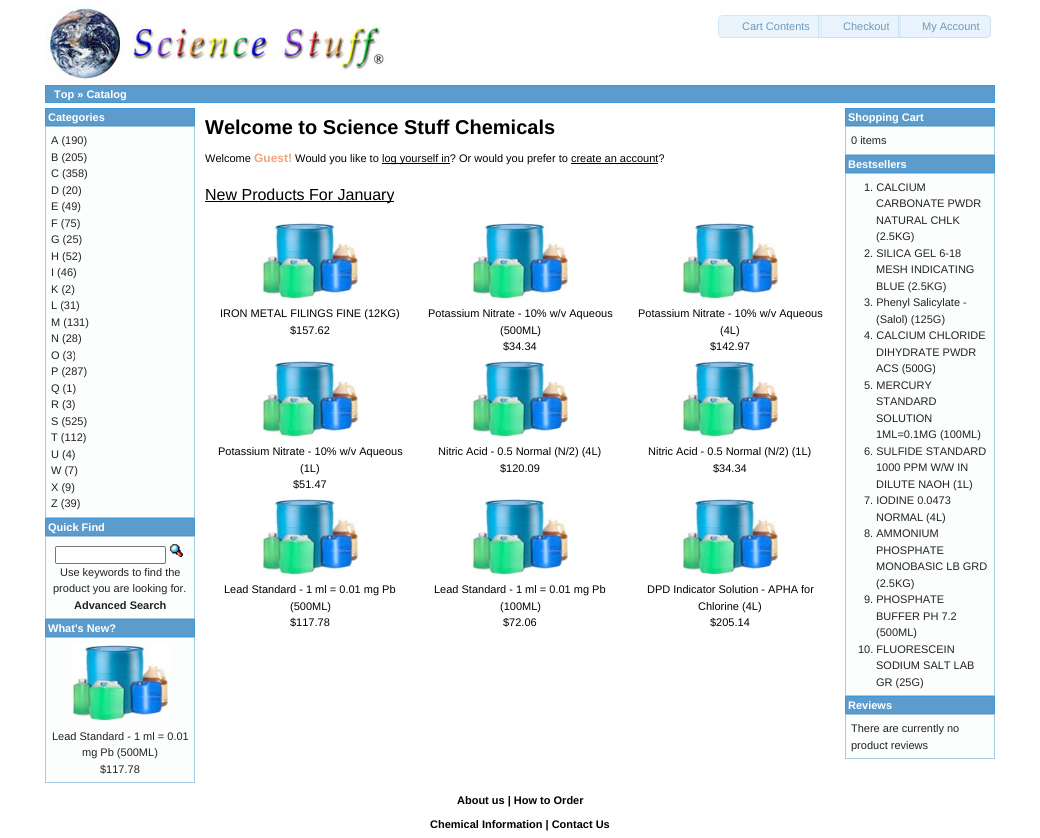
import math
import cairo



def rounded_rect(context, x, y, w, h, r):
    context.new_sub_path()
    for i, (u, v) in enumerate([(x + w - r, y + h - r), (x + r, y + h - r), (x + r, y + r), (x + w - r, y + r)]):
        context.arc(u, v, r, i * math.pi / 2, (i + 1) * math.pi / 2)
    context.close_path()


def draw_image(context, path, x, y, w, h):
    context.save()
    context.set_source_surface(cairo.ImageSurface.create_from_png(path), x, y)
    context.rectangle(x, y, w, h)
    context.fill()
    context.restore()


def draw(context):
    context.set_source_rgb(1, 1, 1)
    context.paint()
    draw_image(context, "images/1.png", 45, 5, 351, 78)
    context.set_source_rgb(233 / 255, 244 / 255, 253 / 255)
    context.new_path()
    context.move_to(723, 15.5)
    context.line_to(821.5, 15.5)
    context.line_to(821.5, 37.5)
    context.line_to(723, 37.5)
    context.curve_to(720.5, 37.5, 718.5, 35.5, 718.5, 33)
    context.line_to(718.5, 20)
    context.curve_to(718.5, 17.5, 720.5, 15.5, 723, 15.5)
    context.close_path()
    context.fill_preserve()
    context.set_source_rgb(214 / 255, 230 / 255, 242 / 255)
    context.set_line_width(1)
    context.stroke()
    context.set_source_rgba(223 / 255, 239 / 255, 252 / 255, 0.7)
    context.rectangle(818, 15, 83, 23)
    context.fill()
    context.rectangle(818.5, 15.5, 82, 22)
    context.set_source_rgba(197 / 255, 219 / 255, 236 / 255, 0.7)
    context.stroke()
    context.set_source_rgba(223 / 255, 239 / 255, 252 / 255, 0.7)
    context.new_path()
    context.move_to(898, 15)
    context.line_to(986, 15)
    context.curve_to(989, 15, 991, 17, 991, 20)
    context.line_to(991, 33)
    context.curve_to(991, 36, 989, 38, 986, 38)
    context.line_to(898, 38)
    context.close_path()
    context.fill()
    context.new_path()
    context.move_to(898.5, 15.5)
    context.line_to(986, 15.5)
    context.curve_to(988.5, 15.5, 990.5, 17.5, 990.5, 20)
    context.line_to(990.5, 33)
    context.curve_to(990.5, 35.5, 988.5, 37.5, 986, 37.5)
    context.line_to(898.5, 37.5)
    context.close_path()
    context.set_source_rgba(197 / 255, 219 / 255, 236 / 255, 0.7)
    context.stroke()
    context.set_source_rgb(92 / 255, 156 / 255, 204 / 255)
    context.rectangle(45.5, 85.5, 949, 17)
    context.fill_preserve()
    context.set_source_rgb(66 / 255, 151 / 255, 215 / 255)
    context.stroke()
    context.set_source_rgb(92 / 255, 156 / 255, 204 / 255)
    context.rectangle(45.5, 108.5, 149, 17)
    context.fill_preserve()
    context.set_source_rgb(66 / 255, 151 / 255, 215 / 255)
    context.stroke()
    context.set_source_rgb(252 / 255, 253 / 255, 253 / 255)
    context.rectangle(45.5, 126.5, 149, 391)
    context.fill_preserve()
    context.set_source_rgb(166 / 255, 201 / 255, 226 / 255)
    context.stroke()
    context.set_source_rgb(92 / 255, 156 / 255, 204 / 255)
    context.rectangle(45.5, 518.5, 149, 17)
    context.fill_preserve()
    context.set_source_rgb(66 / 255, 151 / 255, 215 / 255)
    context.stroke()
    context.set_source_rgb(252 / 255, 253 / 255, 253 / 255)
    context.rectangle(45.5, 536.5, 149, 82)
    context.fill_preserve()
    context.set_source_rgb(166 / 255, 201 / 255, 226 / 255)
    context.stroke()
    context.set_source_rgb(1, 1, 1)
    rounded_rect(context, 55.5, 546.5, 110, 17, 1.5)
    context.fill_preserve()
    context.set_source_rgb(118 / 255, 118 / 255, 118 / 255)
    context.stroke()
    draw_image(context, "images/2.png", 170, 544, 13, 13)
    context.set_source_rgb(92 / 255, 156 / 255, 204 / 255)
    context.rectangle(45.5, 619.5, 149, 17)
    context.fill_preserve()
    context.set_source_rgb(66 / 255, 151 / 255, 215 / 255)
    context.stroke()
    context.set_source_rgb(252 / 255, 253 / 255, 253 / 255)
    context.rectangle(45.5, 637.5, 149, 145)
    context.fill_preserve()
    context.set_source_rgb(166 / 255, 201 / 255, 226 / 255)
    context.stroke()
    draw_image(context, "images/3.png", 71, 643, 99, 80)
    context.set_source_rgb(0, 0, 0)
    context.rectangle(382, 163, 68, 1)
    context.fill()
    context.rectangle(571, 163, 87, 1)
    context.fill()
    context.rectangle(205, 201, 189, 1)
    context.fill()
    draw_image(context, "images/4.png", 260, 221, 100, 80)
    draw_image(context, "images/4.png", 470, 221, 100, 80)
    draw_image(context, "images/4.png", 680, 221, 100, 80)
    draw_image(context, "images/4.png", 260, 359, 100, 80)
    draw_image(context, "images/4.png", 470, 359, 100, 80)
    draw_image(context, "images/4.png", 680, 359, 100, 80)
    draw_image(context, "images/4.png", 260, 497, 100, 80)
    draw_image(context, "images/4.png", 470, 497, 100, 80)
    draw_image(context, "images/4.png", 680, 497, 100, 80)
    context.set_source_rgb(92 / 255, 156 / 255, 204 / 255)
    context.rectangle(845.5, 108.5, 149, 17)
    context.fill_preserve()
    context.set_source_rgb(66 / 255, 151 / 255, 215 / 255)
    context.stroke()
    context.set_source_rgb(252 / 255, 253 / 255, 253 / 255)
    context.rectangle(845.5, 126.5, 149, 28)
    context.fill_preserve()
    context.set_source_rgb(166 / 255, 201 / 255, 226 / 255)
    context.stroke()
    context.set_source_rgb(92 / 255, 156 / 255, 204 / 255)
    context.rectangle(845.5, 155.5, 149, 17)
    context.fill_preserve()
    context.set_source_rgb(66 / 255, 151 / 255, 215 / 255)
    context.stroke()
    context.set_source_rgb(252 / 255, 253 / 255, 253 / 255)
    context.rectangle(845.5, 173.5, 149, 522)
    context.fill_preserve()
    context.set_source_rgb(166 / 255, 201 / 255, 226 / 255)
    context.stroke()
    context.set_source_rgb(92 / 255, 156 / 255, 204 / 255)
    context.rectangle(845.5, 696.5, 149, 17)
    context.fill_preserve()
    context.set_source_rgb(66 / 255, 151 / 255, 215 / 255)
    context.stroke()
    context.set_source_rgb(252 / 255, 253 / 255, 253 / 255)
    context.rectangle(845.5, 714.5, 149, 44)
    context.fill_preserve()
    context.set_source_rgb(166 / 255, 201 / 255, 226 / 255)
    context.stroke()
    context.select_font_face("Liberation Sans")
    context.set_font_size(11)
    context.set_source_rgb(109 / 255, 154 / 255, 187 / 255)
    context.move_to(742, 30)
    context.show_text("Cart Contents")
    context.move_to(843, 30)
    context.show_text("Checkout")
    context.move_to(922, 30)
    context.show_text("My Account")
    context.select_font_face("Liberation Sans", cairo.FontSlant.NORMAL, cairo.FontWeight.BOLD)
    context.set_source_rgb(1, 1, 1)
    context.move_to(54, 98)
    context.show_text("Top » Catalog")
    context.move_to(48, 121)
    context.show_text("Categories")
    context.select_font_face("Liberation Sans")
    context.set_source_rgb(34 / 255, 34 / 255, 34 / 255)
    context.move_to(51, 144)
    context.show_text("A (190)")
    context.move_to(51, 161)
    context.show_text("B (205)")
    context.move_to(51, 177)
    context.show_text("C (358)")
    context.move_to(51, 194)
    context.show_text("D (20)")
    context.move_to(51, 210)
    context.show_text("E (49)")
    context.move_to(51, 227)
    context.show_text("F (75)")
    context.move_to(51, 243)
    context.show_text("G (25)")
    context.move_to(51, 260)
    context.show_text("H (52)")
    context.move_to(51, 276)
    context.show_text("I (46)")
    context.move_to(51, 293)
    context.show_text("K (2)")
    context.move_to(51, 309)
    context.show_text("L (31)")
    context.move_to(51, 326)
    context.show_text("M (131)")
    context.move_to(51, 342)
    context.show_text("N (28)")
    context.move_to(51, 359)
    context.show_text("O (3)")
    context.move_to(51, 375)
    context.show_text("P (287)")
    context.move_to(51, 392)
    context.show_text("Q (1)")
    context.move_to(51, 408)
    context.show_text("R (3)")
    context.move_to(51, 425)
    context.show_text("S (525)")
    context.move_to(51, 441)
    context.show_text("T (112)")
    context.move_to(51, 458)
    context.show_text("U (4)")
    context.move_to(51, 474)
    context.show_text("W (7)")
    context.move_to(51, 491)
    context.show_text("X (9)")
    context.move_to(51, 507)
    context.show_text("Z (39)")
    context.select_font_face("Liberation Sans", cairo.FontSlant.NORMAL, cairo.FontWeight.BOLD)
    context.set_source_rgb(1, 1, 1)
    context.move_to(48, 531)
    context.show_text("Quick Find")
    context.select_font_face("Liberation Sans")
    context.set_source_rgb(34 / 255, 34 / 255, 34 / 255)
    context.move_to(60, 576)
    context.show_text("Use keywords to find the")
    context.move_to(53, 592)
    context.show_text("product you are looking for.")
    context.select_font_face("Liberation Sans", cairo.FontSlant.NORMAL, cairo.FontWeight.BOLD)
    context.move_to(74, 609)
    context.show_text("Advanced Search")
    context.set_source_rgb(1, 1, 1)
    context.move_to(48, 632)
    context.show_text("What's New?")
    context.select_font_face("Liberation Sans")
    context.set_source_rgb(34 / 255, 34 / 255, 34 / 255)
    context.move_to(52, 740)
    context.show_text("Lead Standard - 1 ml = 0.01")
    context.move_to(82, 756)
    context.show_text("mg Pb (500ML)")
    context.move_to(100, 773)
    context.show_text("$117.78")
    context.select_font_face("Liberation Sans", cairo.FontSlant.NORMAL, cairo.FontWeight.BOLD)
    context.set_font_size(20)
    context.set_source_rgb(0, 0, 0)
    context.move_to(205, 134)
    context.show_text("Welcome to Science Stuff Chemicals")
    context.select_font_face("Liberation Sans")
    context.set_font_size(11)
    context.move_to(205, 162)
    context.show_text("Welcome")
    context.select_font_face("Liberation Sans", cairo.FontSlant.NORMAL, cairo.FontWeight.BOLD)
    context.set_font_size(12)
    context.set_source_rgb(240 / 255, 164 / 255, 128 / 255)
    context.move_to(254, 162)
    context.show_text("Guest!")
    context.select_font_face("Liberation Sans")
    context.set_font_size(11)
    context.set_source_rgb(0, 0, 0)
    context.move_to(295, 162)
    context.show_text("Would you like to")
    context.move_to(382, 162)
    context.show_text("log yourself in? Or would you prefer to create an account?")
    context.set_font_size(16)
    context.move_to(205, 200)
    context.show_text("New Products For January")
    context.set_font_size(11)
    context.move_to(220, 317)
    context.show_text("IRON METAL FILINGS FINE (12KG)")
    context.move_to(290, 334)
    context.show_text("$157.62")
    context.move_to(428, 317)
    context.show_text("Potassium Nitrate - 10% w/v Aqueous")
    context.move_to(500, 334)
    context.show_text("(500ML)")
    context.move_to(503, 350)
    context.show_text("$34.34")
    context.move_to(638, 317)
    context.show_text("Potassium Nitrate - 10% w/v Aqueous")
    context.move_to(720, 334)
    context.show_text("(4L)")
    context.move_to(710, 350)
    context.show_text("$142.97")
    context.move_to(218, 455)
    context.show_text("Potassium Nitrate - 10% w/v Aqueous")
    context.move_to(300, 472)
    context.show_text("(1L)")
    context.move_to(293, 488)
    context.show_text("$51.47")
    context.move_to(438, 455)
    context.show_text("Nitric Acid - 0.5 Normal (N/2) (4L)")
    context.move_to(500, 472)
    context.show_text("$120.09")
    context.move_to(648, 455)
    context.show_text("Nitric Acid - 0.5 Normal (N/2) (1L)")
    context.move_to(713, 472)
    context.show_text("$34.34")
    context.move_to(224, 593)
    context.show_text("Lead Standard - 1 ml = 0.01 mg Pb")
    context.move_to(290, 610)
    context.show_text("(500ML)")
    context.move_to(290, 626)
    context.show_text("$117.78")
    context.move_to(434, 593)
    context.show_text("Lead Standard - 1 ml = 0.01 mg Pb")
    context.move_to(500, 610)
    context.show_text("(100ML)")
    context.move_to(503, 626)
    context.show_text("$72.06")
    context.move_to(647, 593)
    context.show_text("DPD Indicator Solution - APHA for")
    context.move_to(698, 610)
    context.show_text("Chlorine (4L)")
    context.move_to(710, 626)
    context.show_text("$205.14")
    context.select_font_face("Liberation Sans", cairo.FontSlant.NORMAL, cairo.FontWeight.BOLD)
    context.set_source_rgb(1, 1, 1)
    context.move_to(848, 121)
    context.show_text("Shopping Cart")
    context.select_font_face("Liberation Sans")
    context.set_source_rgb(34 / 255, 34 / 255, 34 / 255)
    context.move_to(851, 144)
    context.show_text("0 items")
    context.select_font_face("Liberation Sans", cairo.FontSlant.NORMAL, cairo.FontWeight.BOLD)
    context.set_source_rgb(1, 1, 1)
    context.move_to(848, 168)
    context.show_text("Bestsellers")
    context.select_font_face("Liberation Sans")
    context.set_source_rgb(34 / 255, 34 / 255, 34 / 255)
    context.move_to(864, 191)
    context.show_text("1. CALCIUM")
    context.move_to(876, 207)
    context.show_text("CARBONATE PWDR")
    context.move_to(876, 224)
    context.show_text("NATURAL CHLK")
    context.move_to(876, 240)
    context.show_text("(2.5KG)")
    context.move_to(864, 257)
    context.show_text("2. SILICA GEL 6-18")
    context.move_to(876, 273)
    context.show_text("MESH INDICATING")
    context.move_to(876, 290)
    context.show_text("BLUE (2.5KG)")
    context.move_to(864, 306)
    context.show_text("3. Phenyl Salicylate -")
    context.move_to(876, 323)
    context.show_text("(Salol) (125G)")
    context.move_to(864, 339)
    context.show_text("4. CALCIUM CHLORIDE")
    context.move_to(876, 356)
    context.show_text("DIHYDRATE PWDR")
    context.move_to(876, 372)
    context.show_text("ACS (500G)")
    context.move_to(864, 389)
    context.show_text("5. MERCURY")
    context.move_to(876, 405)
    context.show_text("STANDARD")
    context.move_to(876, 422)
    context.show_text("SOLUTION")
    context.move_to(876, 438)
    context.show_text("1ML=0.1MG (100ML)")
    context.move_to(864, 455)
    context.show_text("6. SULFIDE STANDARD")
    context.move_to(876, 471)
    context.show_text("1000 PPM W/W IN")
    context.move_to(876, 488)
    context.show_text("DILUTE NAOH (1L)")
    context.move_to(864, 504)
    context.show_text("7. IODINE 0.0473")
    context.move_to(876, 521)
    context.show_text("NORMAL (4L)")
    context.move_to(864, 537)
    context.show_text("8. AMMONIUM")
    context.move_to(876, 554)
    context.show_text("PHOSPHATE")
    context.move_to(876, 570)
    context.show_text("MONOBASIC LB GRD")
    context.move_to(876, 587)
    context.show_text("(2.5KG)")
    context.move_to(864, 603)
    context.show_text("9. PHOSPHATE")
    context.move_to(876, 620)
    context.show_text("BUFFER PH 7.2")
    context.move_to(876, 636)
    context.show_text("(500ML)")
    context.move_to(858, 653)
    context.show_text("10. FLUORESCEIN")
    context.move_to(876, 669)
    context.show_text("SODIUM SALT LAB")
    context.move_to(876, 686)
    context.show_text("GR (25G)")
    context.select_font_face("Liberation Sans", cairo.FontSlant.NORMAL, cairo.FontWeight.BOLD)
    context.set_source_rgb(1, 1, 1)
    context.move_to(848, 709)
    context.show_text("Reviews")
    context.select_font_face("Liberation Sans")
    context.set_source_rgb(34 / 255, 34 / 255, 34 / 255)
    context.move_to(851, 732)
    context.show_text("There are currently no")
    context.move_to(851, 749)
    context.show_text("product reviews")
    context.select_font_face("Liberation Sans", cairo.FontSlant.NORMAL, cairo.FontWeight.BOLD)
    context.set_source_rgb(0, 0, 0)
    context.move_to(457, 804)
    context.show_text("About us | How to Order")
    context.move_to(430, 828)
    context.show_text("Chemical Information | Contact Us")


surface = cairo.ImageSurface(cairo.Format.RGB24, 1040, 838)
context = cairo.Context(surface)
options = cairo.FontOptions()
options.set_hint_metrics(cairo.HintMetrics.OFF)
options.set_hint_style(cairo.HintStyle.NONE)
context.set_font_options(options)
context.set_miter_limit(4)
draw(context)
surface.write_to_png("out.png")
